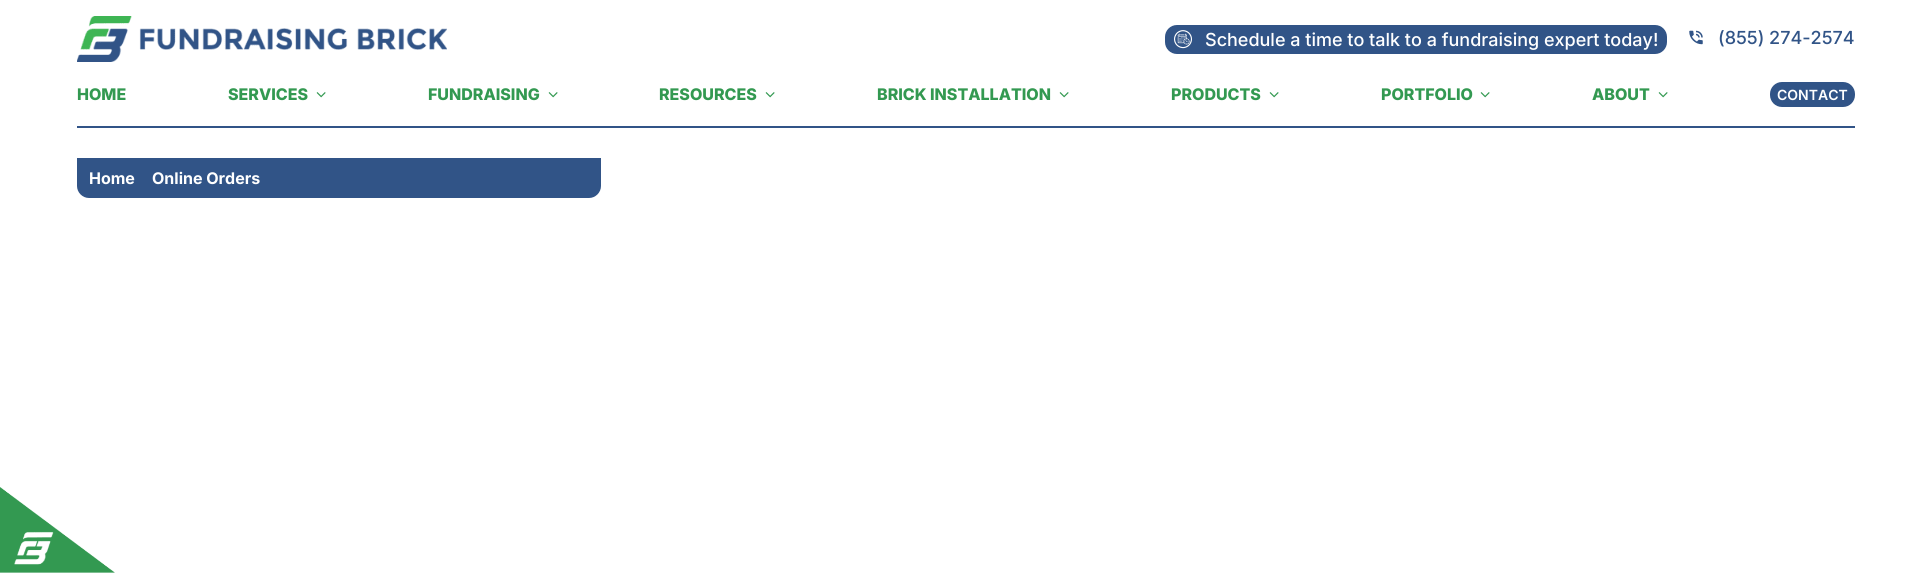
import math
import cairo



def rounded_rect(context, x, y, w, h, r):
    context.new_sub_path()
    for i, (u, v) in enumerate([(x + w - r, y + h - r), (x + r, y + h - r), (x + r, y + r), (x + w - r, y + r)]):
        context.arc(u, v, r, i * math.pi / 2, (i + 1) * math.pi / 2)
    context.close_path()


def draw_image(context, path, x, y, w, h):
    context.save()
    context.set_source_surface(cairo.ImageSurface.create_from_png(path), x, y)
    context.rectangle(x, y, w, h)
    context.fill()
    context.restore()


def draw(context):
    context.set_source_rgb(1, 1, 1)
    context.paint()
    draw_image(context, "images/1.png", 77, 16, 370, 46)
    context.set_source_rgb(49 / 255, 84 / 255, 135 / 255)
    rounded_rect(context, 1165, 25, 502, 29, 12)
    context.fill()
    draw_image(context, "images/2.png", 1174, 30, 18, 19)
    draw_image(context, "images/3.png", 1689, 30, 14, 15)
    draw_image(context, "images/4.png", 316, 92, 10, 6)
    draw_image(context, "images/4.png", 548, 92, 10, 6)
    draw_image(context, "images/4.png", 765, 92, 10, 6)
    draw_image(context, "images/4.png", 1059, 92, 10, 6)
    draw_image(context, "images/4.png", 1269, 92, 10, 6)
    draw_image(context, "images/4.png", 1480, 92, 10, 6)
    draw_image(context, "images/4.png", 1658, 92, 10, 6)
    rounded_rect(context, 1770, 82, 85, 25, 12)
    context.fill()
    context.rectangle(77, 126, 1778, 2)
    context.fill()
    context.new_path()
    context.move_to(77, 158)
    context.line_to(601, 158)
    context.line_to(601, 186)
    context.curve_to(601, 192.5, 595.5, 198, 589, 198)
    context.line_to(89, 198)
    context.curve_to(82.5, 198, 77, 192.5, 77, 186)
    context.close_path()
    context.fill()
    draw_image(context, "images/5.png", 0, 487, 115, 86)
    context.select_font_face("Inter Medium")
    context.set_font_size(18)
    context.set_source_rgb(1, 1, 1)
    context.move_to(1205, 46)
    context.show_text("Schedule a time to talk to a fundraising expert today!")
    context.set_source_rgb(49 / 255, 84 / 255, 135 / 255)
    context.move_to(1718, 44)
    context.show_text("(855) 274-2574")
    context.select_font_face("Inter ExtraBold")
    context.set_font_size(16)
    context.set_source_rgb(51 / 255, 153 / 255, 81 / 255)
    context.move_to(77, 100)
    context.show_text("HOME")
    context.move_to(228, 100)
    context.show_text("SERVICES")
    context.move_to(428, 100)
    context.show_text("FUNDRAISING")
    context.move_to(659, 100)
    context.show_text("RESOURCES")
    context.move_to(877, 100)
    context.show_text("BRICK INSTALLATION")
    context.move_to(1171, 100)
    context.show_text("PRODUCTS")
    context.move_to(1381, 100)
    context.show_text("PORTFOLIO")
    context.move_to(1592, 100)
    context.show_text("ABOUT")
    context.select_font_face("Inter SemiBold")
    context.set_font_size(14)
    context.set_source_rgb(1, 1, 1)
    context.move_to(1777, 100)
    context.show_text("CONTACT")
    context.select_font_face("Inter", cairo.FontSlant.NORMAL, cairo.FontWeight.BOLD)
    context.set_font_size(16)
    context.move_to(89, 184)
    context.show_text("Home")
    context.move_to(152, 184)
    context.show_text("Online Orders")


surface = cairo.ImageSurface(cairo.Format.RGB24, 1932, 573)
context = cairo.Context(surface)
options = cairo.FontOptions()
options.set_hint_metrics(cairo.HintMetrics.OFF)
options.set_hint_style(cairo.HintStyle.NONE)
context.set_font_options(options)
context.set_miter_limit(4)
draw(context)
surface.write_to_png("out.png")
